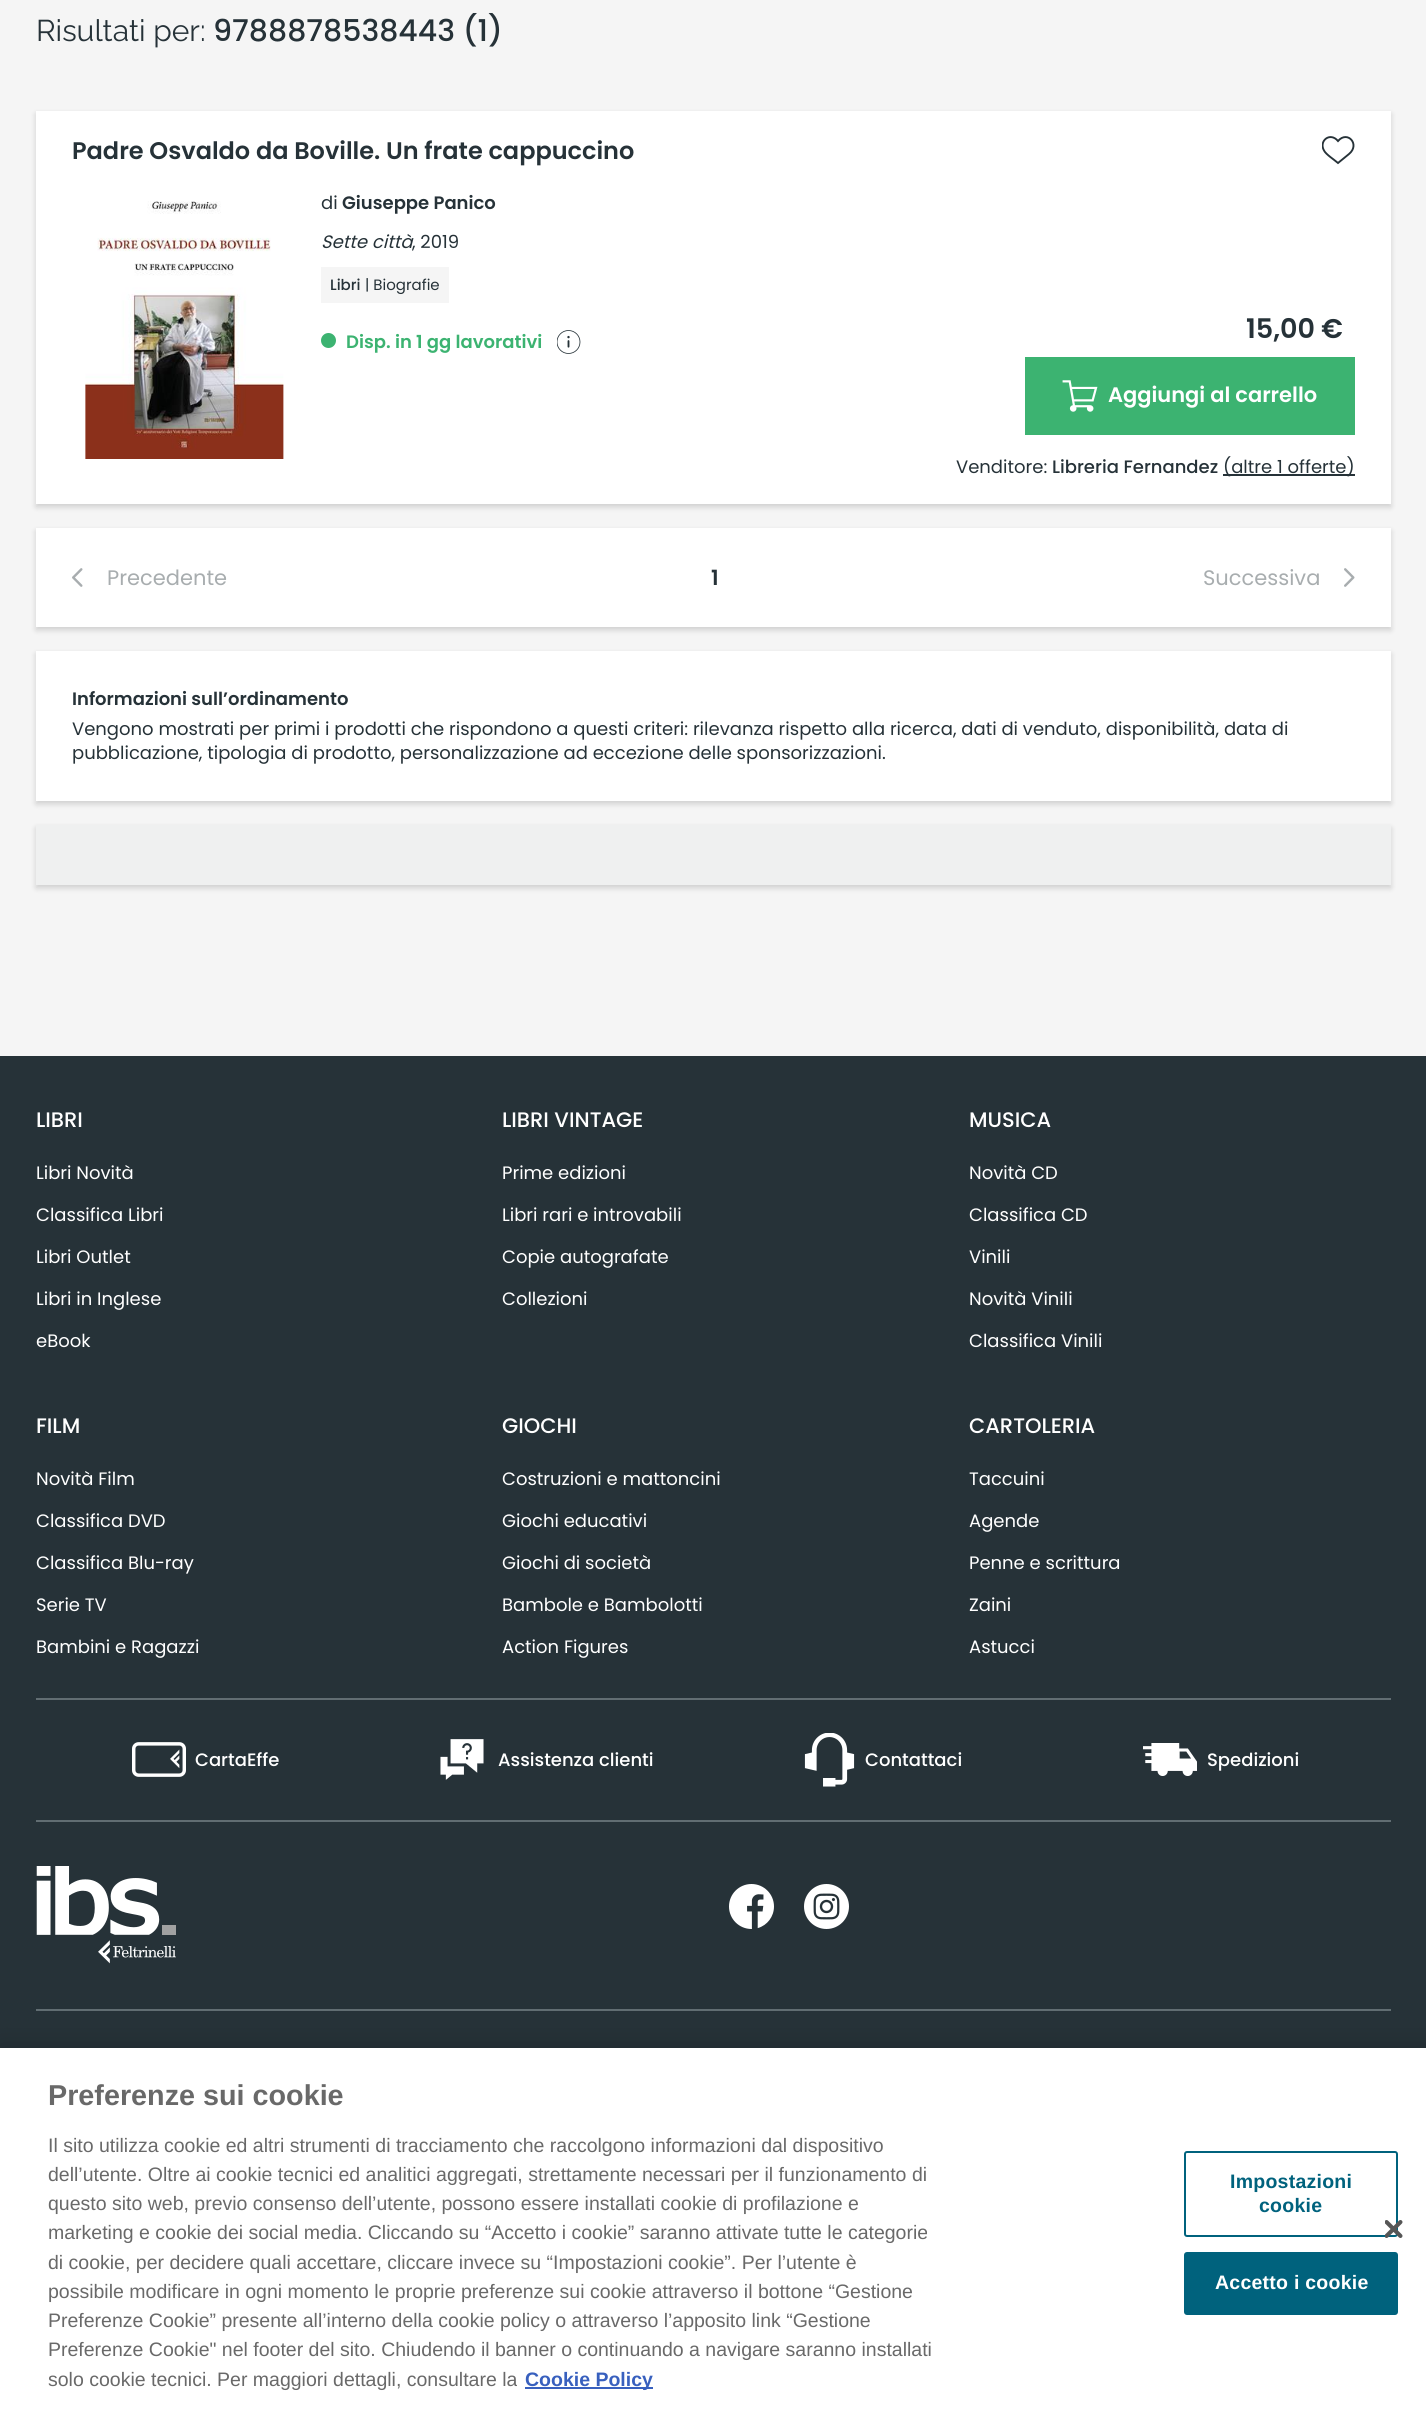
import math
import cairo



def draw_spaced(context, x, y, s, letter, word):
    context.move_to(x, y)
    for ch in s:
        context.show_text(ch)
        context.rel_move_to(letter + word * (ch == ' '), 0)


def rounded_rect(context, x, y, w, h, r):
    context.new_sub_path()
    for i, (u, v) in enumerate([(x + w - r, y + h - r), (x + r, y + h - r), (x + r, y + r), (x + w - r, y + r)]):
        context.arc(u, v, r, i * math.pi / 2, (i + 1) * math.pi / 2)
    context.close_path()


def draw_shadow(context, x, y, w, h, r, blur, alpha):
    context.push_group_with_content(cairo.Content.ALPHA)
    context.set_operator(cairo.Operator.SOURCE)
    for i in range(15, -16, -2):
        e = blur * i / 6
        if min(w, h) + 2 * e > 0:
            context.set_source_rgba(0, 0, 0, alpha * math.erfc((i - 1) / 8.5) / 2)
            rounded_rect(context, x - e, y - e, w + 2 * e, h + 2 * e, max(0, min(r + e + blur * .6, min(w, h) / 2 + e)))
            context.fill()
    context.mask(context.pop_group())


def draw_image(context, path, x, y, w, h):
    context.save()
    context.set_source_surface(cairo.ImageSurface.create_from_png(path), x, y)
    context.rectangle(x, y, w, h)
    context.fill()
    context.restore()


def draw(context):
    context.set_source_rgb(245 / 255, 245 / 255, 245 / 255)
    context.paint()
    context.set_source_rgb(0, 0, 0)
    draw_shadow(context, 36, 114, 1355, 393, 0, 3, 0.16)
    context.set_source_rgb(1, 1, 1)
    context.rectangle(36, 111, 1355, 393)
    context.fill()
    context.save()
    context.rectangle(1322, 134, 33, 33)
    context.clip()
    context.new_path()
    context.move_to(1338, 163)
    context.curve_to(1334, 159.5, 1326, 154.5, 1324, 150.5)
    context.curve_to(1318.5, 141, 1330, 131.5, 1338, 141)
    context.curve_to(1347.5, 130, 1360.5, 144.5, 1349, 154)
    context.close_path()
    context.set_source_rgb(38 / 255, 50 / 255, 56 / 255)
    context.set_line_width(1.9)
    context.stroke()
    context.restore()
    draw_image(context, "images/1.png", 85, 201, 199, 258)
    context.set_source_rgb(245 / 255, 245 / 255, 245 / 255)
    context.rectangle(321, 267, 128, 36)
    context.fill()
    context.set_source_rgb(60 / 255, 179 / 255, 113 / 255)
    context.arc(328.5, 340.5, 7.5, 0, 2 * math.pi)
    context.fill()
    draw_image(context, "images/2.png", 557, 330, 24, 24)
    context.rectangle(1025, 357, 330, 78)
    context.fill()
    draw_image(context, "images/3.png", 1062, 380, 36, 32)
    context.set_source_rgb(38 / 255, 50 / 255, 56 / 255)
    context.rectangle(1223, 474, 132, 2)
    context.fill()
    context.set_source_rgb(0, 0, 0)
    draw_shadow(context, 36, 531, 1355, 99, 0, 3, 0.16)
    context.set_source_rgb(1, 1, 1)
    context.rectangle(36, 528, 1355, 99)
    context.fill()
    draw_image(context, "images/4.png", 72, 568, 11, 19)
    draw_image(context, "images/5.png", 1344, 568, 11, 19)
    context.set_source_rgb(0, 0, 0)
    draw_shadow(context, 36, 654, 1355, 150, 0, 3, 0.16)
    context.set_source_rgb(1, 1, 1)
    context.rectangle(36, 651, 1355, 150)
    context.fill()
    context.set_source_rgb(0, 0, 0)
    draw_shadow(context, 36, 828, 1355, 60, 0, 3, 0.16)
    context.set_source_rgb(239 / 255, 240 / 255, 240 / 255)
    context.rectangle(36, 825, 1355, 60)
    context.fill()
    context.set_source_rgb(38 / 255, 50 / 255, 56 / 255)
    context.rectangle(0, 1056, 1426, 992)
    context.fill()
    context.set_source_rgb(97 / 255, 109 / 255, 114 / 255)
    context.rectangle(36, 1698, 1355, 2)
    context.fill()
    context.rectangle(36, 1820, 1355, 2)
    context.fill()
    draw_image(context, "images/6.png", 132, 1742, 54, 35)
    draw_image(context, "images/7.png", 440, 1739, 44, 41)
    draw_image(context, "images/8.png", 804, 1733, 51, 54)
    draw_image(context, "images/9.png", 1143, 1743, 54, 33)
    context.rectangle(36, 2009, 1355, 2)
    context.fill()
    draw_image(context, "images/10.png", 36, 1866, 140, 98)
    draw_image(context, "images/11.png", 729, 1884, 45, 45)
    draw_image(context, "images/12.png", 804, 1884, 45, 45)
    context.set_source_rgb(0, 0, 0)
    draw_shadow(context, 0, 2048, 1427, 361, 0, 13.5, 0.2)
    context.set_source_rgb(1, 1, 1)
    context.rectangle(0, 2048, 1426, 361)
    context.fill()
    context.set_source_rgb(56 / 255, 96 / 255, 190 / 255)
    context.rectangle(525, 2387, 128, 2)
    context.fill()
    rounded_rect(context, 1185, 2152, 212, 84, 2)
    context.set_source_rgb(0, 98 / 255, 125 / 255)
    context.stroke()
    rounded_rect(context, 1185, 2253, 212, 61, 2)
    context.fill_preserve()
    context.stroke()
    draw_image(context, "images/13.png", 1385, 2220, 18, 18)
    context.select_font_face("Raleway")
    context.set_font_size(30)
    context.set_source_rgb(38 / 255, 50 / 255, 56 / 255)
    context.move_to(36, 41)
    context.show_text("Risultati per:")
    context.select_font_face("Poppins Medium")
    context.move_to(213, 41)
    context.show_text("9788878538443 (1)")
    context.select_font_face("Poppins SemiBold")
    context.set_font_size(24)
    context.move_to(72, 159)
    context.show_text("Padre Osvaldo da Boville. Un frate cappuccino")
    context.select_font_face("Poppins")
    context.set_font_size(18)
    context.move_to(321, 209)
    context.show_text("di")
    context.select_font_face("Poppins SemiBold")
    context.move_to(342, 209)
    context.show_text("Giuseppe Panico")
    context.select_font_face("Poppins", cairo.FontSlant.ITALIC)
    context.move_to(321, 248)
    context.show_text("Sette città")
    context.select_font_face("Poppins")
    context.move_to(412, 248)
    context.show_text(", 2019")
    context.select_font_face("Poppins Medium")
    context.set_font_size(15)
    context.move_to(330, 290)
    context.show_text("Libri")
    context.select_font_face("Poppins")
    context.move_to(365, 290)
    context.show_text("| Biografie")
    context.select_font_face("Poppins SemiBold")
    context.set_font_size(18)
    context.set_source_rgb(60 / 255, 179 / 255, 113 / 255)
    context.move_to(346, 348)
    context.show_text("Disp. in 1 gg lavorativi")
    context.set_font_size(27)
    context.set_source_rgb(38 / 255, 50 / 255, 56 / 255)
    context.move_to(1246, 338)
    context.show_text("15,00 €")
    context.set_font_size(21)
    context.set_source_rgb(1, 1, 1)
    context.move_to(1108, 402)
    context.show_text("Aggiungi al carrello")
    context.select_font_face("Poppins")
    context.set_font_size(18)
    context.set_source_rgb(38 / 255, 50 / 255, 56 / 255)
    context.move_to(956, 473)
    context.show_text("Venditore:")
    context.select_font_face("Poppins Medium")
    context.move_to(1052, 473)
    context.show_text("Libreria Fernandez")
    context.select_font_face("Poppins")
    context.move_to(1223, 473)
    context.show_text("(altre 1 offerte)")
    context.set_font_size(21)
    context.set_source_rgb(168 / 255, 173 / 255, 175 / 255)
    context.move_to(107, 585)
    context.show_text("Precedente")
    context.select_font_face("Poppins SemiBold")
    context.set_source_rgb(38 / 255, 50 / 255, 56 / 255)
    context.move_to(711, 585)
    context.show_text("1")
    context.select_font_face("Poppins")
    context.set_source_rgb(168 / 255, 173 / 255, 175 / 255)
    context.move_to(1203, 585)
    context.show_text("Successiva")
    context.select_font_face("Poppins SemiBold")
    context.set_font_size(18)
    context.set_source_rgb(38 / 255, 50 / 255, 56 / 255)
    context.move_to(72, 705)
    context.show_text("Informazioni sull’ordinamento")
    context.select_font_face("Poppins")
    context.move_to(72, 735)
    context.show_text("Vengono mostrati per primi i prodotti che rispondono a questi criteri: rilevanza rispetto alla ricerca, dati di venduto, disponibilità, data di")
    context.move_to(72, 759)
    context.show_text("pubblicazione, tipologia di prodotto, personalizzazione ad eccezione delle sponsorizzazioni.")
    context.select_font_face("Poppins Medium")
    context.set_font_size(21)
    context.set_source_rgb(1, 1, 1)
    context.move_to(36, 1127)
    context.show_text("LIBRI")
    context.select_font_face("Poppins")
    context.set_font_size(18)
    context.move_to(36, 1179)
    context.show_text("Libri Novità")
    context.move_to(36, 1221)
    context.show_text("Classifica Libri")
    context.move_to(36, 1263)
    context.show_text("Libri Outlet")
    context.move_to(36, 1305)
    context.show_text("Libri in Inglese")
    context.move_to(36, 1347)
    context.show_text("eBook")
    context.select_font_face("Poppins Medium")
    context.set_font_size(21)
    context.move_to(502, 1127)
    context.show_text("LIBRI VINTAGE")
    context.select_font_face("Poppins")
    context.set_font_size(18)
    context.move_to(502, 1179)
    context.show_text("Prime edizioni")
    context.move_to(502, 1221)
    context.show_text("Libri rari e introvabili")
    context.move_to(502, 1263)
    context.show_text("Copie autografate")
    context.move_to(502, 1305)
    context.show_text("Collezioni")
    context.select_font_face("Poppins Medium")
    context.set_font_size(21)
    context.move_to(969, 1127)
    context.show_text("MUSICA")
    context.select_font_face("Poppins")
    context.set_font_size(18)
    context.move_to(969, 1179)
    context.show_text("Novità CD")
    context.move_to(969, 1221)
    context.show_text("Classifica CD")
    context.move_to(969, 1263)
    context.show_text("Vinili")
    context.move_to(969, 1305)
    context.show_text("Novità Vinili")
    context.move_to(969, 1347)
    context.show_text("Classifica Vinili")
    context.select_font_face("Poppins Medium")
    context.set_font_size(21)
    context.move_to(36, 1433)
    context.show_text("FILM")
    context.select_font_face("Poppins")
    context.set_font_size(18)
    context.move_to(36, 1485)
    context.show_text("Novità Film")
    context.move_to(36, 1527)
    context.show_text("Classifica DVD")
    context.move_to(36, 1569)
    context.show_text("Classifica Blu-ray")
    context.move_to(36, 1611)
    context.show_text("Serie TV")
    context.move_to(36, 1653)
    context.show_text("Bambini e Ragazzi")
    context.select_font_face("Poppins Medium")
    context.set_font_size(21)
    context.move_to(502, 1433)
    context.show_text("GIOCHI")
    context.select_font_face("Poppins")
    context.set_font_size(18)
    context.move_to(502, 1485)
    context.show_text("Costruzioni e mattoncini")
    context.move_to(502, 1527)
    context.show_text("Giochi educativi")
    context.move_to(502, 1569)
    context.show_text("Giochi di società")
    context.move_to(502, 1611)
    context.show_text("Bambole e Bambolotti")
    context.move_to(502, 1653)
    context.show_text("Action Figures")
    context.select_font_face("Poppins Medium")
    context.set_font_size(21)
    context.move_to(969, 1433)
    context.show_text("CARTOLERIA")
    context.select_font_face("Poppins")
    context.set_font_size(18)
    context.move_to(969, 1485)
    context.show_text("Taccuini")
    context.move_to(969, 1527)
    context.show_text("Agende")
    context.move_to(969, 1569)
    context.show_text("Penne e scrittura")
    context.move_to(969, 1611)
    context.show_text("Zaini")
    context.move_to(969, 1653)
    context.show_text("Astucci")
    context.select_font_face("Poppins Medium")
    context.move_to(195, 1766)
    context.show_text("CartaEffe")
    context.move_to(498, 1766)
    context.show_text("Assistenza clienti")
    context.move_to(865, 1766)
    context.show_text("Contattaci")
    context.move_to(1207, 1766)
    context.show_text("Spedizioni")
    context.select_font_face("Liberation Sans", cairo.FontSlant.NORMAL, cairo.FontWeight.BOLD)
    context.set_font_size(28.75)
    context.set_source_rgb(105 / 255, 105 / 255, 105 / 255)
    context.move_to(48, 2105)
    context.show_text("Preferenze sui cookie")
    context.select_font_face("Liberation Sans")
    context.set_font_size(19.5)
    context.move_to(48, 2152)
    context.show_text("Il sito utilizza cookie ed altri strumenti di tracciamento che raccolgono informazioni dal dispositivo")
    context.move_to(48, 2181)
    context.show_text("dell’utente. Oltre ai cookie tecnici ed analitici aggregati, strettamente necessari per il funzionamento di")
    context.move_to(48, 2210)
    context.show_text("questo sito web, previo consenso dell’utente, possono essere installati cookie di profilazione e")
    context.move_to(48, 2239)
    context.show_text("marketing e cookie dei social media. Cliccando su “Accetto i cookie” saranno attivate tutte le categorie")
    context.move_to(48, 2269)
    context.show_text("di cookie, per decidere quali accettare, cliccare invece su “Impostazioni cookie”. Per l’utente è")
    context.move_to(48, 2298)
    context.show_text("possibile modificare in ogni momento le proprie preferenze sui cookie attraverso il bottone “Gestione")
    context.move_to(48, 2327)
    context.show_text("Preferenze Cookie” presente all’interno della cookie policy o attraverso l’apposito link “Gestione")
    context.move_to(48, 2356)
    context.show_text("Preferenze Cookie\" nel footer del sito. Chiudendo il banner o continuando a navigare saranno installati")
    context.move_to(48, 2386)
    context.show_text("solo cookie tecnici. Per maggiori dettagli, consultare la")
    context.select_font_face("Liberation Sans", cairo.FontSlant.NORMAL, cairo.FontWeight.BOLD)
    context.set_source_rgb(56 / 255, 96 / 255, 190 / 255)
    context.move_to(525, 2386)
    context.show_text("Cookie Policy")
    context.set_source_rgb(0, 98 / 255, 125 / 255)
    draw_spaced(context, 1230, 2188, "Impostazioni", 0.25, 0)
    draw_spaced(context, 1259, 2212, "cookie", 0.25, 0)
    context.set_source_rgb(1, 1, 1)
    draw_spaced(context, 1215, 2289, "Accetto i cookie", 0.25, 0)


surface = cairo.ImageSurface(cairo.Format.RGB24, 1426, 2409)
context = cairo.Context(surface)
options = cairo.FontOptions()
options.set_hint_metrics(cairo.HintMetrics.OFF)
options.set_hint_style(cairo.HintStyle.NONE)
context.set_font_options(options)
context.set_miter_limit(4)
draw(context)
surface.write_to_png("out.png")
